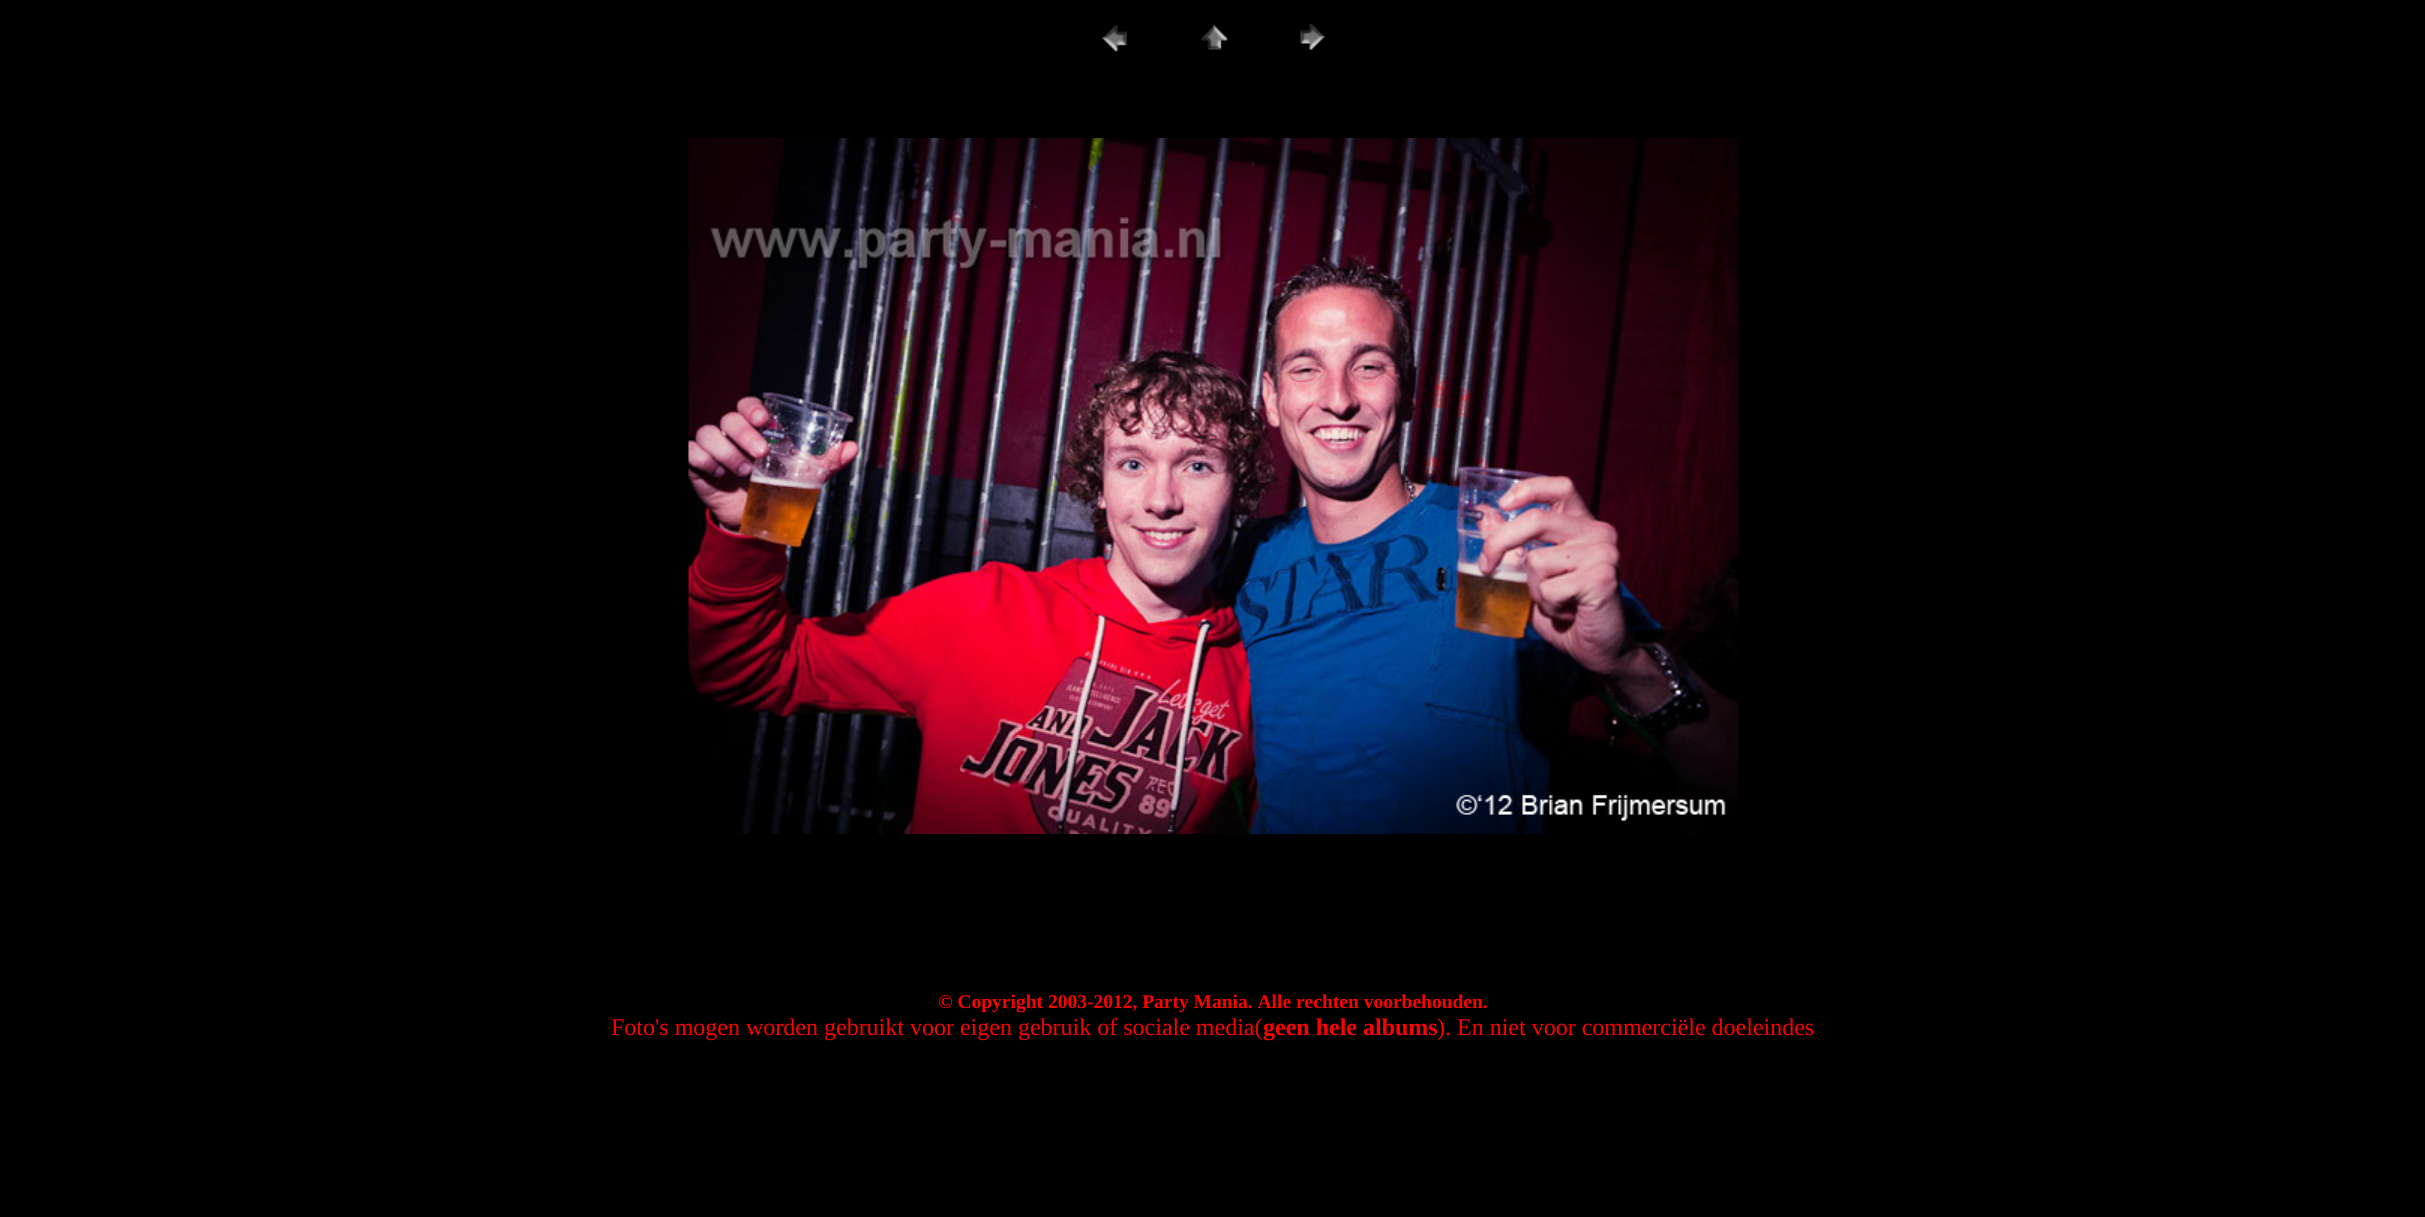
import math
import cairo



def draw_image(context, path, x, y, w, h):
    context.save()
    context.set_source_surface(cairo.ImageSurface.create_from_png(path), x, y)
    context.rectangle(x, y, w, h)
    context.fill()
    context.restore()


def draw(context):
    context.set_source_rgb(0, 0, 0)
    context.paint()
    draw_image(context, "images/1.png", 1102, 25, 25, 27)
    draw_image(context, "images/2.png", 1201, 25, 27, 25)
    draw_image(context, "images/3.png", 1300, 23, 25, 27)
    draw_image(context, "images/4.png", 688, 138, 1051, 696)
    context.select_font_face("Liberation Serif", cairo.FontSlant.NORMAL, cairo.FontWeight.BOLD)
    context.set_font_size(19.5)
    context.set_source_rgb(1, 0, 0)
    context.move_to(938, 1008)
    context.show_text("© Copyright 2003-2012, Party Mania. Alle rechten voorbehouden.")
    context.select_font_face("Liberation Serif")
    context.set_font_size(24)
    context.move_to(611, 1035)
    context.show_text("Foto's mogen worden gebruikt voor eigen gebruik of sociale media(")
    context.select_font_face("Liberation Serif", cairo.FontSlant.NORMAL, cairo.FontWeight.BOLD)
    context.move_to(1263, 1035)
    context.show_text("geen hele albums")
    context.select_font_face("Liberation Serif")
    context.move_to(1437, 1035)
    context.show_text("). En niet voor commerciële doeleindes")


surface = cairo.ImageSurface(cairo.Format.RGB24, 2425, 1217)
context = cairo.Context(surface)
options = cairo.FontOptions()
options.set_hint_metrics(cairo.HintMetrics.OFF)
options.set_hint_style(cairo.HintStyle.NONE)
context.set_font_options(options)
context.set_miter_limit(4)
draw(context)
surface.write_to_png("out.png")
